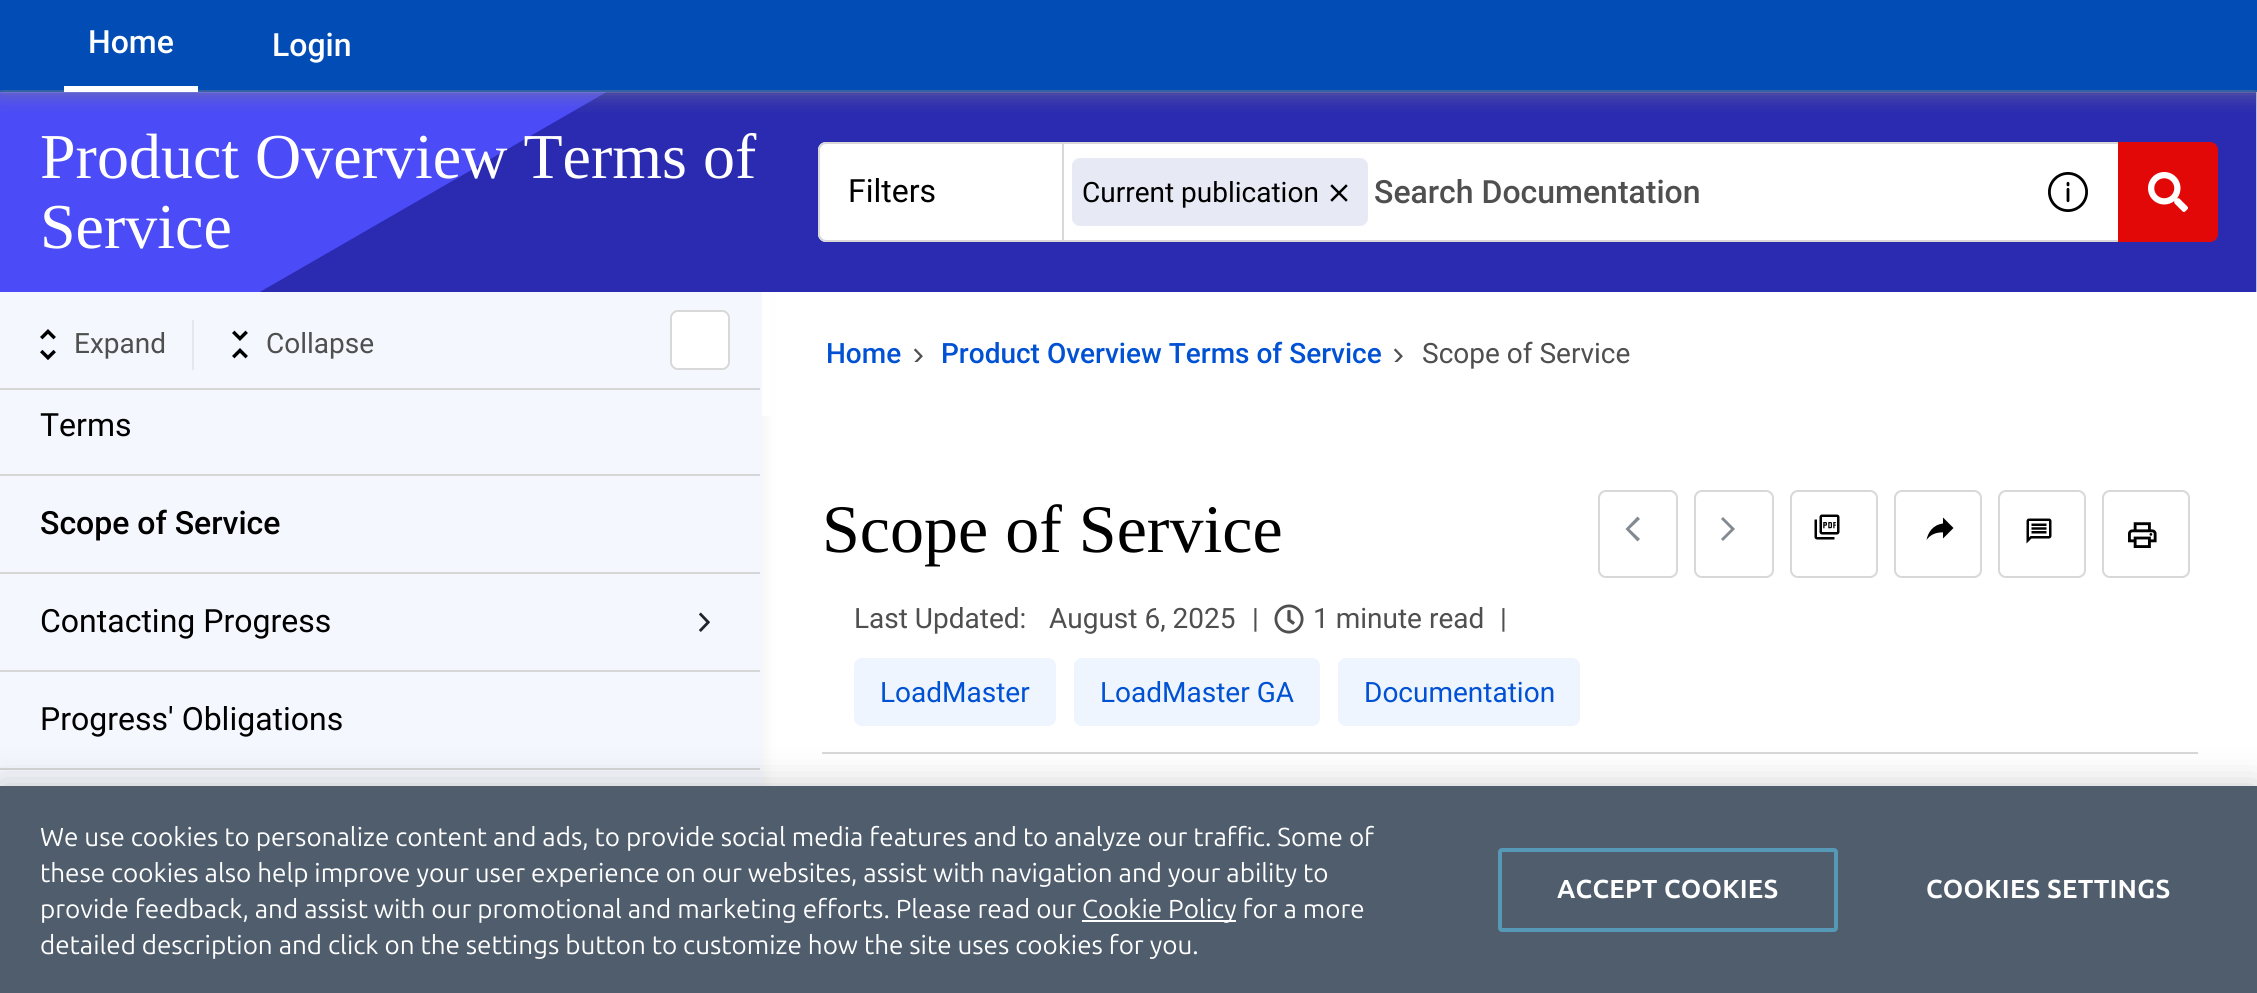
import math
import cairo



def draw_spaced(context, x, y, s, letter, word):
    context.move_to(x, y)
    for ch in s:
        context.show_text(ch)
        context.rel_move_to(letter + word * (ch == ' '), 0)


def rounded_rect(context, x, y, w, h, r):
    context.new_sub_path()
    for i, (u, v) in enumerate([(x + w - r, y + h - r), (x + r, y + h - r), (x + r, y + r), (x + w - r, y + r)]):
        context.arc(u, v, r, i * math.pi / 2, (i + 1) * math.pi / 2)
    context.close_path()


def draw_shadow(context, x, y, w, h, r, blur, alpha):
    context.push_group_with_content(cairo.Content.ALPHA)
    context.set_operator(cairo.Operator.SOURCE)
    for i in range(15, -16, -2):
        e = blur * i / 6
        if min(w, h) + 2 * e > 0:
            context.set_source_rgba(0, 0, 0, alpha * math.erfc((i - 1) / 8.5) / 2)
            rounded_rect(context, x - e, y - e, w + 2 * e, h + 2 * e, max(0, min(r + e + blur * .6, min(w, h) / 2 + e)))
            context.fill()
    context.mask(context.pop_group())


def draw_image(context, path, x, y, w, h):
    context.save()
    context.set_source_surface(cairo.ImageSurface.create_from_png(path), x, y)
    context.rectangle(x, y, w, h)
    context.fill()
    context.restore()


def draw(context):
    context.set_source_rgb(1, 1, 1)
    context.paint()
    context.set_source_rgb(2 / 255, 77 / 255, 181 / 255)
    context.rectangle(0, 0, 2257, 92)
    context.fill()
    context.set_source_rgb(181 / 255, 183 / 255, 179 / 255)
    draw_shadow(context, 0, 296, 762, 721, 0, 8, 0.25)
    draw_image(context, "images/1.png", 0, 92, 2257, 200)
    context.save()
    context.rectangle(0, 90, 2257, 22)
    context.clip()
    context.set_source_rgb(131 / 255, 132 / 255, 134 / 255)
    draw_shadow(context, 0, 4, 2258, 90, 0, 10, 0.62)
    context.restore()
    context.set_source_rgb(1, 1, 1)
    context.rectangle(64, 86, 134, 6)
    context.fill()
    context.new_path()
    context.move_to(826, 142)
    context.line_to(1062, 142)
    context.line_to(1062, 242)
    context.line_to(826, 242)
    context.curve_to(821.5, 242, 818, 238.5, 818, 234)
    context.line_to(818, 150)
    context.curve_to(818, 145.5, 821.5, 142, 826, 142)
    context.close_path()
    context.fill()
    context.set_source_rgb(216 / 255, 216 / 255, 216 / 255)
    context.set_fill_rule(cairo.FillRule.EVEN_ODD)
    context.new_path()
    context.move_to(826, 142)
    context.line_to(1062, 142)
    context.line_to(1062, 242)
    context.line_to(826, 242)
    context.curve_to(822, 242, 818, 238, 818, 234)
    context.line_to(818, 150)
    context.curve_to(818, 146, 822, 142, 826, 142)
    context.close_path()
    context.move_to(826, 144)
    context.line_to(1062, 144)
    context.line_to(1062, 240)
    context.line_to(826, 240)
    context.curve_to(823, 240, 820, 237, 820, 234)
    context.line_to(820, 150)
    context.curve_to(820, 147, 823, 144, 826, 144)
    context.close_path()
    context.fill()
    context.set_source_rgb(1, 1, 1)
    context.rectangle(1064, 144, 1054, 96)
    context.fill()
    context.set_source_rgb(216 / 255, 216 / 255, 216 / 255)
    context.rectangle(1062, 142, 1056, 2)
    context.fill()
    context.rectangle(1062, 240, 1056, 2)
    context.fill()
    draw_image(context, "images/2.png", 2048, 172, 40, 40)
    context.set_source_rgb(227 / 255, 8 / 255, 8 / 255)
    context.new_path()
    context.move_to(2118, 142)
    context.line_to(2210, 142)
    context.curve_to(2214.5, 142, 2218, 145.5, 2218, 150)
    context.line_to(2218, 234)
    context.curve_to(2218, 238.5, 2214.5, 242, 2210, 242)
    context.line_to(2118, 242)
    context.close_path()
    context.fill()
    draw_image(context, "images/3.png", 2148, 172, 40, 40)
    context.set_source_rgb(231 / 255, 234 / 255, 244 / 255)
    rounded_rect(context, 1072, 158, 296, 68, 8)
    context.fill()
    draw_image(context, "images/4.png", 1330, 184, 18, 18)
    context.set_source_rgb(216 / 255, 216 / 255, 216 / 255)
    context.rectangle(1062, 142, 2, 100)
    context.fill()
    context.set_source_rgb(244 / 255, 247 / 255, 253 / 255)
    context.rectangle(0, 292, 762, 494)
    context.fill()
    context.set_source_rgb(214 / 255, 214 / 255, 214 / 255)
    context.rectangle(0, 388, 760, 2)
    context.fill()
    draw_image(context, "images/5.png", 40, 329, 16, 31)
    context.set_source_rgb(229 / 255, 231 / 255, 234 / 255)
    context.rectangle(192, 320, 2, 50)
    context.fill()
    draw_image(context, "images/6.png", 232, 330, 16, 29)
    context.set_source_rgb(1, 1, 1)
    rounded_rect(context, 671, 311, 58, 58, 7)
    context.fill_preserve()
    context.set_source_rgb(216 / 255, 216 / 255, 216 / 255)
    context.stroke()
    context.set_source_rgb(214 / 255, 214 / 255, 214 / 255)
    context.rectangle(0, 474, 760, 2)
    context.fill()
    context.rectangle(0, 572, 760, 2)
    context.fill()
    context.rectangle(0, 670, 760, 2)
    context.fill()
    draw_image(context, "images/7.png", 699, 612, 11, 20)
    context.rectangle(0, 768, 760, 2)
    context.fill()
    context.set_source_rgb(1, 1, 1)
    context.rectangle(762, 292, 9, 124)
    context.fill()
    draw_image(context, "images/8.png", 914, 348, 9, 14)
    draw_image(context, "images/8.png", 1394, 348, 9, 14)
    context.set_source_rgb(216 / 255, 216 / 255, 216 / 255)
    context.rectangle(822, 752, 1376, 2)
    context.fill()
    rounded_rect(context, 1599, 491, 78, 86, 7)
    context.stroke()
    context.set_source_rgb(131 / 255, 138 / 255, 145 / 255)
    context.set_fill_rule(cairo.FillRule.WINDING)
    context.new_path()
    context.move_to(1640, 519)
    context.line_to(1637.5, 516.5)
    context.line_to(1625.5, 529)
    context.line_to(1637.5, 541.5)
    context.line_to(1640, 539)
    context.line_to(1629.5, 529)
    context.close_path()
    context.fill()
    rounded_rect(context, 1695, 491, 78, 86, 7)
    context.set_source_rgb(216 / 255, 216 / 255, 216 / 255)
    context.stroke()
    context.set_source_rgb(131 / 255, 138 / 255, 145 / 255)
    context.new_path()
    context.move_to(1721, 539)
    context.line_to(1723, 541)
    context.line_to(1735, 529)
    context.line_to(1723, 517)
    context.line_to(1721, 519)
    context.line_to(1731, 529)
    context.close_path()
    context.fill()
    rounded_rect(context, 1791, 491, 86, 86, 7)
    context.set_source_rgb(216 / 255, 216 / 255, 216 / 255)
    context.stroke()
    draw_image(context, "images/9.png", 1814, 514, 26, 26)
    rounded_rect(context, 1895, 491, 86, 86, 7)
    context.stroke()
    draw_image(context, "images/10.png", 1926, 517, 28, 23)
    rounded_rect(context, 1999, 491, 86, 86, 7)
    context.stroke()
    draw_image(context, "images/11.png", 2026, 518, 26, 26)
    rounded_rect(context, 2103, 491, 86, 86, 7)
    context.stroke()
    draw_image(context, "images/12.png", 2128, 522, 29, 26)
    draw_image(context, "images/13.png", 1274, 604, 30, 30)
    context.set_source_rgb(238 / 255, 245 / 255, 1)
    rounded_rect(context, 854, 658, 202, 68, 8)
    context.fill()
    rounded_rect(context, 1074, 658, 246, 68, 8)
    context.fill()
    rounded_rect(context, 1338, 658, 242, 68, 8)
    context.fill()
    context.set_source_rgb(0, 0, 0)
    draw_shadow(context, 0, 786, 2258, 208, 0, 18, 0.2)
    context.set_source_rgb(79 / 255, 93 / 255, 108 / 255)
    context.rectangle(0, 786, 2257, 207)
    context.fill()
    context.set_source_rgb(1, 1, 1)
    context.rectangle(1082, 920, 154, 2)
    context.fill()
    rounded_rect(context, 1500, 850, 336, 80, 2)
    context.set_source_rgb(86 / 255, 153 / 255, 182 / 255)
    context.set_line_width(4)
    context.stroke()
    context.select_font_face("Roboto Medium")
    context.set_font_size(32)
    context.set_source_rgb(1, 1, 1)
    context.move_to(88, 53)
    context.show_text("Home")
    context.move_to(272, 56)
    context.show_text("Login")
    context.select_font_face("Liberation Serif")
    context.set_font_size(64)
    context.move_to(40, 178)
    context.show_text("Product Overview Terms of")
    context.move_to(40, 248)
    context.show_text("Service")
    context.select_font_face("Roboto")
    context.set_font_size(32)
    context.set_source_rgb(0, 0, 0)
    context.move_to(848, 202)
    context.show_text("Filters")
    context.set_font_size(28)
    context.move_to(1082, 202)
    context.show_text("Current publication")
    context.select_font_face("Roboto Medium")
    context.set_font_size(32)
    context.set_source_rgb(79 / 255, 79 / 255, 79 / 255)
    context.move_to(1374, 203)
    context.show_text("Search Documentation")
    context.select_font_face("Roboto")
    context.set_font_size(28)
    context.move_to(74, 353)
    context.show_text("Expand")
    context.move_to(266, 353)
    context.show_text("Collapse")
    context.set_font_size(32)
    context.set_source_rgb(0, 0, 0)
    context.move_to(40, 436)
    context.show_text("Terms")
    context.select_font_face("Roboto Medium")
    context.move_to(40, 534)
    context.show_text("Scope of Service")
    context.select_font_face("Roboto")
    context.move_to(40, 632)
    context.show_text("Contacting Progress")
    context.move_to(40, 730)
    context.show_text("Progress' Obligations")
    context.select_font_face("Roboto Medium")
    context.set_font_size(28)
    context.set_source_rgb(0, 81 / 255, 211 / 255)
    context.move_to(826, 363)
    context.show_text("Home")
    context.move_to(941, 363)
    context.show_text("Product Overview Terms of Service")
    context.select_font_face("Roboto")
    context.set_source_rgb(79 / 255, 79 / 255, 79 / 255)
    context.move_to(1422, 363)
    context.show_text("Scope of Service")
    context.select_font_face("Liberation Serif")
    context.set_font_size(68)
    context.set_source_rgb(0, 0, 0)
    context.move_to(822, 552)
    context.show_text("Scope of Service")
    context.select_font_face("Roboto")
    context.set_font_size(28)
    context.set_source_rgb(79 / 255, 79 / 255, 79 / 255)
    context.move_to(854, 628)
    context.show_text("Last Updated:")
    context.move_to(1049, 628)
    context.show_text("August 6, 2025")
    context.move_to(1252, 628)
    context.show_text("|")
    context.move_to(1313, 628)
    context.show_text("1 minute read")
    context.move_to(1500, 628)
    context.show_text("|")
    context.set_source_rgb(0, 81 / 255, 211 / 255)
    context.move_to(880, 702)
    context.show_text("LoadMaster")
    context.move_to(1100, 702)
    context.show_text("LoadMaster GA")
    context.move_to(1364, 702)
    context.show_text("Documentation")
    context.select_font_face("Ubuntu")
    context.set_font_size(26)
    context.set_source_rgb(1, 1, 1)
    context.move_to(40, 846)
    context.show_text("We use cookies to personalize content and ads, to provide social media features and to analyze our traffic. Some of")
    context.move_to(40, 882)
    context.show_text("these cookies also help improve your user experience on our websites, assist with navigation and your ability to")
    context.move_to(40, 918)
    context.show_text("provide feedback, and assist with our promotional and marketing efforts. Please read our")
    context.move_to(1082, 918)
    context.show_text("Cookie Policy for a more")
    context.move_to(40, 954)
    context.show_text("detailed description and click on the settings button to customize how the site uses cookies for you.")
    context.select_font_face("Ubuntu", cairo.FontSlant.NORMAL, cairo.FontWeight.BOLD)
    draw_spaced(context, 1557, 898, "ACCEPT COOKIES", 0.25, 0)
    draw_spaced(context, 1926, 898, "COOKIES SETTINGS", 0.25, 0)


surface = cairo.ImageSurface(cairo.Format.RGB24, 2257, 993)
context = cairo.Context(surface)
options = cairo.FontOptions()
options.set_hint_metrics(cairo.HintMetrics.OFF)
options.set_hint_style(cairo.HintStyle.NONE)
context.set_font_options(options)
context.set_miter_limit(4)
draw(context)
surface.write_to_png("out.png")
